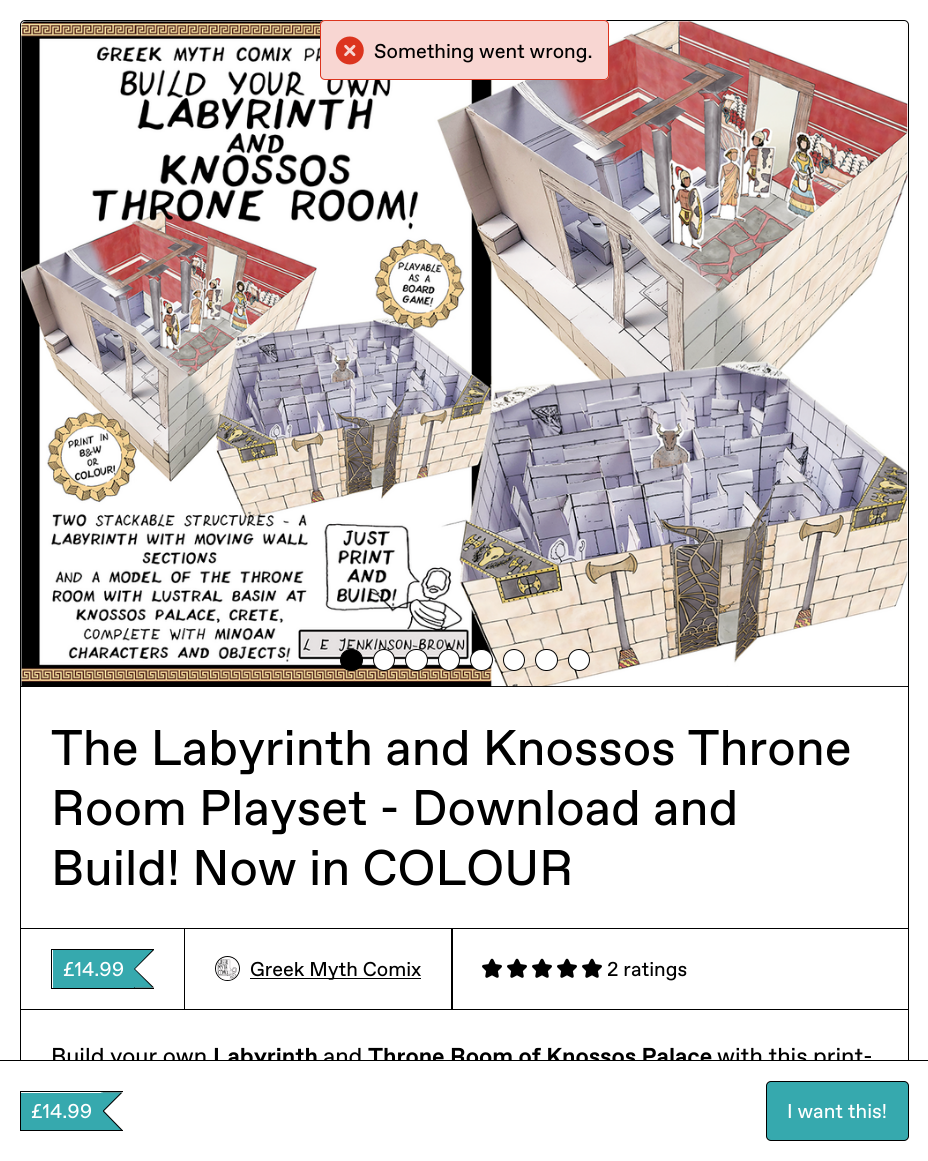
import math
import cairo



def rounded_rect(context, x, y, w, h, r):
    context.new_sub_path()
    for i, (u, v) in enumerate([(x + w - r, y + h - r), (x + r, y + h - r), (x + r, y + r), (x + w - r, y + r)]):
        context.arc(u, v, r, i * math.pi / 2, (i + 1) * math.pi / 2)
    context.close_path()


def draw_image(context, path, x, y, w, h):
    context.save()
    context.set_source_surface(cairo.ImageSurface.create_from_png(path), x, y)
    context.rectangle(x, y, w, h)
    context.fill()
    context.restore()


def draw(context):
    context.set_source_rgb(1, 1, 1)
    context.paint()
    rounded_rect(context, 20.5, 20.5, 888, 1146, 4.5)
    context.set_source_rgb(0, 0, 0)
    context.set_line_width(1)
    context.stroke()
    context.rectangle(21, 686, 887, 1)
    context.fill()
    draw_image(context, "images/2.png", 21, 21, 887, 666)
    context.set_source_rgb(1, 1, 1)
    rounded_rect(context, 320, 20, 289, 60, 5)
    context.fill()
    context.set_source_rgba(220 / 255, 52 / 255, 30 / 255, 0.2)
    rounded_rect(context, 320.5, 20.5, 288, 59, 4.5)
    context.fill_preserve()
    context.set_source_rgb(220 / 255, 52 / 255, 30 / 255)
    context.stroke()
    draw_image(context, "images/1.png", 335, 36, 29, 29)
    context.set_source_rgb(0, 0, 0)
    rounded_rect(context, 340.5, 649.5, 22, 21, 10.5)
    context.fill_preserve()
    context.stroke()
    context.set_source_rgb(1, 1, 1)
    context.arc(384, 660, 10.5, 0, 2 * math.pi)
    context.fill_preserve()
    context.set_source_rgb(0, 0, 0)
    context.stroke()
    context.set_source_rgb(1, 1, 1)
    rounded_rect(context, 405.5, 649.5, 22, 21, 10.5)
    context.fill_preserve()
    context.set_source_rgb(0, 0, 0)
    context.stroke()
    context.set_source_rgb(1, 1, 1)
    context.arc(449, 660, 10.5, 0, 2 * math.pi)
    context.fill_preserve()
    context.set_source_rgb(0, 0, 0)
    context.stroke()
    context.set_source_rgb(1, 1, 1)
    rounded_rect(context, 470.5, 649.5, 22, 21, 10.5)
    context.fill_preserve()
    context.set_source_rgb(0, 0, 0)
    context.stroke()
    context.set_source_rgb(1, 1, 1)
    context.arc(514, 660, 10.5, 0, 2 * math.pi)
    context.fill_preserve()
    context.set_source_rgb(0, 0, 0)
    context.stroke()
    context.set_source_rgb(1, 1, 1)
    rounded_rect(context, 535.5, 649.5, 22, 21, 10.5)
    context.fill_preserve()
    context.set_source_rgb(0, 0, 0)
    context.stroke()
    context.set_source_rgb(1, 1, 1)
    context.arc(579, 660, 10.5, 0, 2 * math.pi)
    context.fill_preserve()
    context.set_source_rgb(0, 0, 0)
    context.stroke()
    context.rectangle(20.5, 928.5, 164, 81)
    context.stroke()
    context.rectangle(51, 949, 103, 1)
    context.fill()
    context.rectangle(51, 988, 103, 1)
    context.fill()
    context.rectangle(51, 949, 1, 40)
    context.fill()
    context.set_source_rgb(54 / 255, 169 / 255, 174 / 255)
    context.rectangle(53, 950, 81, 38)
    context.fill()
    context.set_source_rgb(0, 0, 0)
    context.new_path()
    context.move_to(134, 950)
    context.line_to(154, 950)
    context.line_to(135, 969)
    context.close_path()
    context.move_to(154, 987.5)
    context.line_to(134, 987.5)
    context.line_to(135, 969)
    context.close_path()
    context.fill()
    context.rectangle(134, 968, 1, 20)
    context.fill()
    context.set_source_rgb(54 / 255, 169 / 255, 174 / 255)
    context.new_path()
    context.move_to(132.5, 950)
    context.line_to(152.5, 950)
    context.line_to(134, 969)
    context.close_path()
    context.move_to(152.5, 987.5)
    context.line_to(132.5, 987.5)
    context.line_to(134, 969)
    context.close_path()
    context.fill()
    context.rectangle(184.5, 928.5, 268, 81)
    context.set_source_rgb(0, 0, 0)
    context.stroke()
    context.arc(227.5, 968.5, 12, 0, 2 * math.pi)
    context.stroke()
    draw_image(context, "images/3.png", 216, 957, 23, 23)
    context.rectangle(250, 978, 171, 1)
    context.fill()
    context.rectangle(451.5, 928.5, 457, 81)
    context.stroke()
    draw_image(context, "images/4.png", 482, 958, 20, 20)
    draw_image(context, "images/4.png", 507, 958, 20, 20)
    draw_image(context, "images/4.png", 532, 958, 20, 20)
    draw_image(context, "images/4.png", 557, 958, 20, 20)
    draw_image(context, "images/4.png", 582, 958, 20, 20)
    context.new_path()
    context.move_to(0, 1060)
    context.line_to(0, 1061)
    context.line_to(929, 1061)
    context.line_to(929, 1160)
    context.line_to(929, 1060)
    context.close_path()
    context.fill()
    context.select_font_face("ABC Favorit")
    context.set_font_size(20)
    context.move_to(374, 58)
    context.show_text("Something went wrong.")
    context.set_font_size(50)
    context.move_to(51, 765)
    context.show_text("The Labyrinth and Knossos Throne")
    context.move_to(51, 825)
    context.show_text("Room Playset - Download and")
    context.move_to(51, 885)
    context.show_text("Build! Now in COLOUR")
    context.set_font_size(20)
    context.set_source_rgb(1, 1, 1)
    context.move_to(63, 976)
    context.show_text("£14.99")
    context.set_source_rgb(0, 0, 0)
    context.move_to(250, 976)
    context.show_text("Greek Myth Comix")
    context.move_to(607, 976)
    context.show_text("2 ratings")
    context.set_font_size(23)
    context.move_to(51, 1064)
    context.show_text("Build your own")
    context.select_font_face("ABC Favorit", cairo.FontSlant.NORMAL, cairo.FontWeight.BOLD)
    context.move_to(213, 1064)
    context.show_text("Labyrinth")
    context.select_font_face("ABC Favorit")
    context.move_to(323, 1064)
    context.show_text("and")
    context.select_font_face("ABC Favorit", cairo.FontSlant.NORMAL, cairo.FontWeight.BOLD)
    context.move_to(368, 1064)
    context.show_text("Throne Room of Knossos Palace")
    context.select_font_face("ABC Favorit")
    context.move_to(717, 1064)
    context.show_text("with this print-")
    context.set_source_rgb(1, 1, 1)
    context.rectangle(20, 1061, 889, 100)
    context.fill()
    context.set_source_rgb(0, 0, 0)
    context.rectangle(20, 1091, 103, 1)
    context.fill()
    context.rectangle(20, 1130, 103, 1)
    context.fill()
    context.rectangle(20, 1091, 1, 40)
    context.fill()
    context.set_source_rgb(54 / 255, 169 / 255, 174 / 255)
    context.rectangle(21, 1093, 82, 37)
    context.fill()
    context.set_font_size(20)
    context.set_source_rgb(1, 1, 1)
    context.move_to(31, 1118)
    context.show_text("£14.99")
    context.set_source_rgb(0, 0, 0)
    context.new_path()
    context.move_to(102.5, 1092.5)
    context.line_to(122.5, 1092.5)
    context.line_to(104, 1111)
    context.close_path()
    context.move_to(122.5, 1130)
    context.line_to(102.5, 1130)
    context.line_to(104, 1111)
    context.close_path()
    context.fill()
    context.rectangle(103, 1109, 1, 4)
    context.fill()
    context.set_source_rgb(54 / 255, 169 / 255, 174 / 255)
    context.new_path()
    context.move_to(101, 1092.5)
    context.line_to(121, 1092.5)
    context.line_to(102.5, 1111)
    context.close_path()
    context.move_to(121, 1130)
    context.line_to(101, 1130)
    context.line_to(102.5, 1111)
    context.close_path()
    context.fill()
    rounded_rect(context, 766.5, 1081.5, 142, 59, 4.5)
    context.fill_preserve()
    context.set_source_rgb(0, 0, 0)
    context.stroke()
    context.set_source_rgb(1, 1, 1)
    context.move_to(787, 1118)
    context.show_text("I want this!")


surface = cairo.ImageSurface(cairo.Format.RGB24, 928, 1161)
context = cairo.Context(surface)
options = cairo.FontOptions()
options.set_hint_metrics(cairo.HintMetrics.OFF)
options.set_hint_style(cairo.HintStyle.NONE)
context.set_font_options(options)
context.set_miter_limit(4)
draw(context)
surface.write_to_png("out.png")
